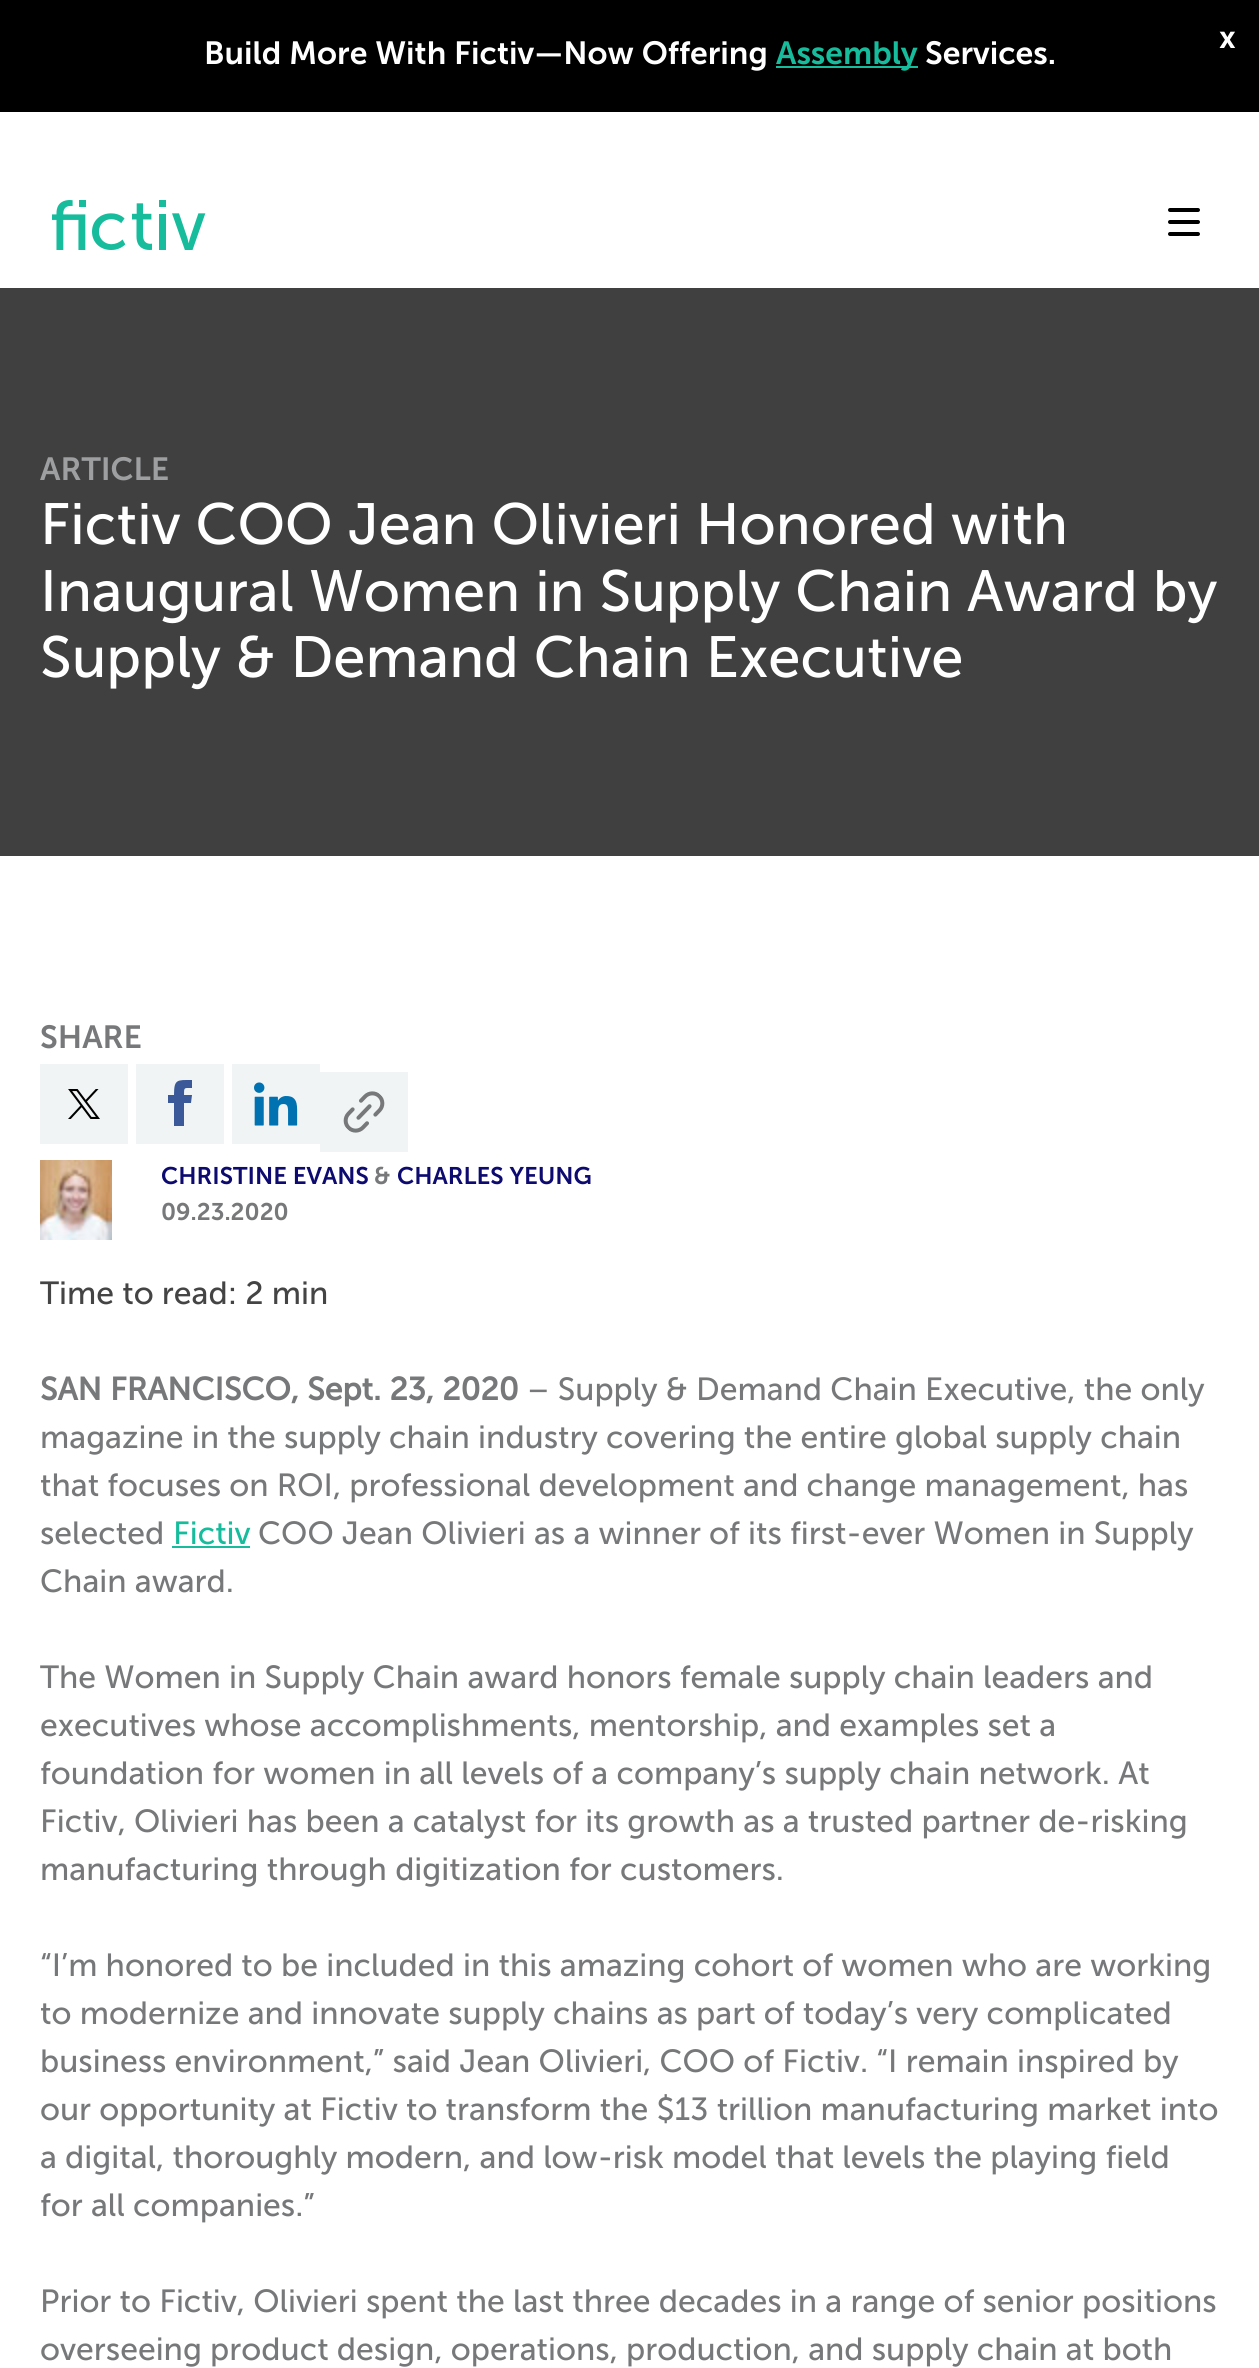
import math
import cairo



def rounded_rect(context, x, y, w, h, r):
    context.new_sub_path()
    for i, (u, v) in enumerate([(x + w - r, y + h - r), (x + r, y + h - r), (x + r, y + r), (x + w - r, y + r)]):
        context.arc(u, v, r, i * math.pi / 2, (i + 1) * math.pi / 2)
    context.close_path()


def draw_image(context, path, x, y, w, h):
    context.save()
    context.set_source_surface(cairo.ImageSurface.create_from_png(path), x, y)
    context.rectangle(x, y, w, h)
    context.fill()
    context.restore()


def draw(context):
    context.set_source_rgb(1, 1, 1)
    context.paint()
    context.set_source_rgb(0, 0, 0)
    context.rectangle(0, 0, 1259, 112)
    context.fill()
    context.set_source_rgb(22 / 255, 188 / 255, 156 / 255)
    context.rectangle(776, 66, 142, 2)
    context.fill()
    draw_image(context, "images/1.png", 52, 200, 154, 50)
    context.set_source_rgb(0, 0, 0)
    rounded_rect(context, 1168, 208, 32, 4, 2)
    context.fill()
    rounded_rect(context, 1168, 220, 32, 4, 2)
    context.fill()
    rounded_rect(context, 1168, 232, 32, 4, 2)
    context.fill()
    context.set_source_rgb(64 / 255, 64 / 255, 64 / 255)
    context.rectangle(0, 288, 1259, 568)
    context.fill()
    context.set_source_rgb(240 / 255, 244 / 255, 245 / 255)
    context.rectangle(40, 1064, 88, 80)
    context.fill()
    draw_image(context, "images/2.png", 68, 1089, 32, 30)
    context.rectangle(136, 1064, 88, 80)
    context.fill()
    context.set_source_rgb(59 / 255, 89 / 255, 152 / 255)
    context.new_path()
    context.move_to(184, 1095)
    context.curve_to(184, 1087, 184, 1088, 192, 1088)
    context.line_to(192, 1080)
    context.curve_to(177, 1080, 174, 1079, 174, 1095)
    context.line_to(168, 1095)
    context.line_to(168, 1103)
    context.line_to(174, 1103)
    context.line_to(174, 1126)
    context.line_to(184, 1126)
    context.line_to(184, 1103)
    context.line_to(191, 1103)
    context.line_to(192, 1095)
    context.close_path()
    context.fill()
    context.set_source_rgb(240 / 255, 244 / 255, 245 / 255)
    context.rectangle(232, 1064, 88, 80)
    context.fill()
    draw_image(context, "images/3.png", 254, 1082, 44, 44)
    context.rectangle(320, 1072, 88, 80)
    context.fill()
    draw_image(context, "images/4.png", 343, 1091, 42, 42)
    draw_image(context, "images/5.png", 40, 1160, 72, 80)
    context.set_source_rgb(22 / 255, 188 / 255, 156 / 255)
    context.rectangle(172, 1546, 78, 2)
    context.fill()
    context.select_font_face("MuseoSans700")
    context.set_font_size(32)
    context.set_source_rgb(1, 1, 1)
    context.move_to(204, 64)
    context.show_text("Build More With Fictiv—Now Offering")
    context.set_source_rgb(22 / 255, 188 / 255, 156 / 255)
    context.move_to(776, 64)
    context.show_text("Assembly")
    context.set_source_rgb(1, 1, 1)
    context.move_to(925, 64)
    context.show_text("Services.")
    context.move_to(1219, 48)
    context.show_text("x")
    context.set_source_rgb(157 / 255, 159 / 255, 161 / 255)
    context.move_to(40, 480)
    context.show_text("ARTICLE")
    context.select_font_face("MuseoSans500")
    context.set_font_size(58)
    context.set_source_rgb(1, 1, 1)
    context.move_to(40, 544)
    context.show_text("Fictiv COO Jean Olivieri Honored with")
    context.move_to(40, 611)
    context.show_text("Inaugural Women in Supply Chain Award by")
    context.move_to(40, 677)
    context.show_text("Supply & Demand Chain Executive")
    context.select_font_face("MuseoSans700")
    context.set_font_size(32)
    context.set_source_rgb(118 / 255, 120 / 255, 122 / 255)
    context.move_to(40, 1048)
    context.show_text("SHARE")
    context.set_font_size(24)
    context.set_source_rgb(13 / 255, 11 / 255, 112 / 255)
    context.move_to(161, 1184)
    context.show_text("CHRISTINE EVANS")
    context.set_source_rgb(118 / 255, 120 / 255, 122 / 255)
    context.move_to(374, 1184)
    context.show_text("&")
    context.set_source_rgb(13 / 255, 11 / 255, 112 / 255)
    context.move_to(397, 1184)
    context.show_text("CHARLES YEUNG")
    context.set_source_rgb(118 / 255, 120 / 255, 122 / 255)
    context.move_to(161, 1220)
    context.show_text("09.23.2020")
    context.select_font_face("MuseoSans500")
    context.set_font_size(32)
    context.set_source_rgb(68 / 255, 68 / 255, 68 / 255)
    context.move_to(40, 1304)
    context.show_text("Time to read: 2 min")
    context.select_font_face("MuseoSans500", cairo.FontSlant.NORMAL, cairo.FontWeight.BOLD)
    context.set_source_rgb(118 / 255, 120 / 255, 122 / 255)
    context.move_to(40, 1400)
    context.show_text("SAN FRANCISCO, Sept. 23, 2020")
    context.select_font_face("MuseoSans500")
    context.move_to(527, 1400)
    context.show_text("– Supply & Demand Chain Executive, the only")
    context.move_to(40, 1448)
    context.show_text("magazine in the supply chain industry covering the entire global supply chain")
    context.move_to(40, 1496)
    context.show_text("that focuses on ROI, professional development and change management, has")
    context.move_to(40, 1544)
    context.show_text("selected")
    context.set_source_rgb(22 / 255, 188 / 255, 156 / 255)
    context.move_to(173, 1544)
    context.show_text("Fictiv")
    context.set_source_rgb(118 / 255, 120 / 255, 122 / 255)
    context.move_to(258, 1544)
    context.show_text("COO Jean Olivieri as a winner of its first-ever Women in Supply")
    context.move_to(40, 1592)
    context.show_text("Chain award.")
    context.move_to(40, 1688)
    context.show_text("The Women in Supply Chain award honors female supply chain leaders and")
    context.move_to(40, 1736)
    context.show_text("executives whose accomplishments, mentorship, and examples set a")
    context.move_to(40, 1784)
    context.show_text("foundation for women in all levels of a company’s supply chain network. At")
    context.move_to(40, 1832)
    context.show_text("Fictiv, Olivieri has been a catalyst for its growth as a trusted partner de-risking")
    context.move_to(40, 1880)
    context.show_text("manufacturing through digitization for customers.")
    context.move_to(40, 1976)
    context.show_text("“I’m honored to be included in this amazing cohort of women who are working")
    context.move_to(40, 2024)
    context.show_text("to modernize and innovate supply chains as part of today’s very complicated")
    context.move_to(40, 2072)
    context.show_text("business environment,” said Jean Olivieri, COO of Fictiv. “I remain inspired by")
    context.move_to(40, 2120)
    context.show_text("our opportunity at Fictiv to transform the $13 trillion manufacturing market into")
    context.move_to(40, 2168)
    context.show_text("a digital, thoroughly modern, and low-risk model that levels the playing field")
    context.move_to(40, 2216)
    context.show_text("for all companies.”")
    context.move_to(40, 2312)
    context.show_text("Prior to Fictiv, Olivieri spent the last three decades in a range of senior positions")
    context.move_to(40, 2360)
    context.show_text("overseeing product design, operations, production, and supply chain at both")


surface = cairo.ImageSurface(cairo.Format.RGB24, 1259, 2368)
context = cairo.Context(surface)
options = cairo.FontOptions()
options.set_hint_metrics(cairo.HintMetrics.OFF)
options.set_hint_style(cairo.HintStyle.NONE)
context.set_font_options(options)
context.set_miter_limit(4)
draw(context)
surface.write_to_png("out.png")
